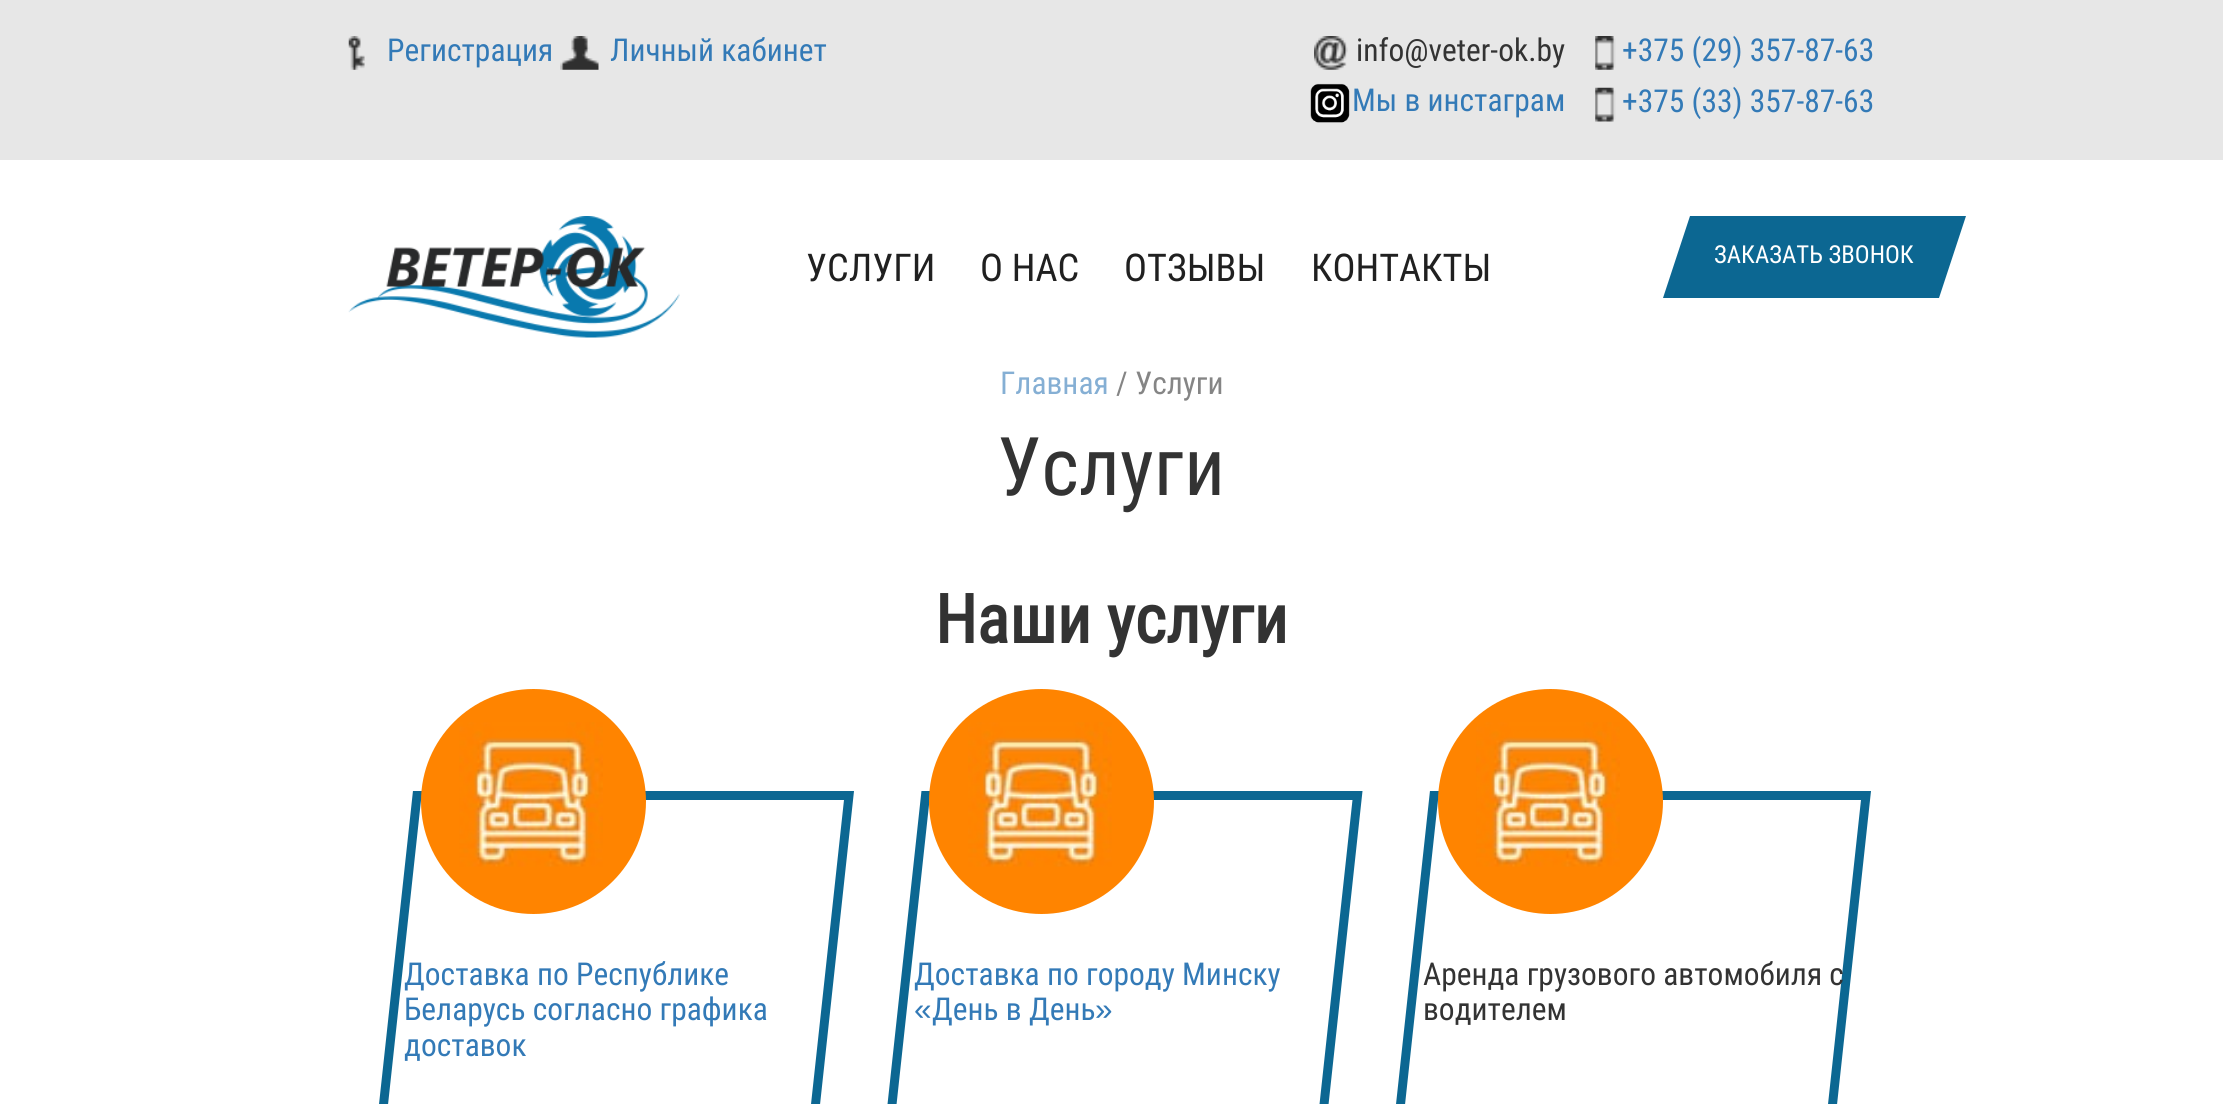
import math
import cairo



def draw_image(context, path, x, y, w, h):
    context.save()
    context.set_source_surface(cairo.ImageSurface.create_from_png(path), x, y)
    context.rectangle(x, y, w, h)
    context.fill()
    context.restore()


def draw(context):
    context.set_source_rgb(1, 1, 1)
    context.paint()
    context.set_source_rgb(231 / 255, 231 / 255, 231 / 255)
    context.rectangle(0, 0, 2223, 160)
    context.fill()
    draw_image(context, "images/1.png", 348, 36, 17, 34)
    draw_image(context, "images/2.png", 560, 36, 39, 34)
    draw_image(context, "images/3.png", 1314, 36, 34, 34)
    draw_image(context, "images/4.png", 1310, 83, 40, 40)
    draw_image(context, "images/5.png", 1595, 36, 21, 34)
    draw_image(context, "images/6.png", 1595, 87, 21, 35)
    draw_image(context, "images/7.png", 348, 216, 332, 122)
    context.set_source_rgb(12 / 255, 103 / 255, 146 / 255)
    context.new_path()
    context.move_to(1690, 216)
    context.line_to(1966, 216)
    context.line_to(1939, 298)
    context.line_to(1663, 298)
    context.close_path()
    context.fill()
    context.new_path()
    context.move_to(417, 795.5)
    context.line_to(849, 795.5)
    context.line_to(789, 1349)
    context.line_to(357, 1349)
    context.close_path()
    context.set_line_width(9)
    context.stroke()
    context.set_source_rgb(1, 132 / 255, 0)
    context.arc(533.5, 801.5, 112.5, 0, 2 * math.pi)
    context.fill()
    draw_image(context, "images/8.png", 459, 722, 144, 145)
    context.new_path()
    context.move_to(925.5, 795.5)
    context.line_to(1357.5, 795.5)
    context.line_to(1297.5, 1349)
    context.line_to(865.5, 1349)
    context.close_path()
    context.set_source_rgb(12 / 255, 103 / 255, 146 / 255)
    context.stroke()
    context.set_source_rgb(1, 132 / 255, 0)
    context.arc(1041.5, 801.5, 112.5, 0, 2 * math.pi)
    context.fill()
    draw_image(context, "images/9.png", 968, 722, 144, 145)
    context.new_path()
    context.move_to(1434, 795.5)
    context.line_to(1866, 795.5)
    context.line_to(1806, 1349)
    context.line_to(1374, 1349)
    context.close_path()
    context.set_source_rgb(12 / 255, 103 / 255, 146 / 255)
    context.stroke()
    context.set_source_rgb(1, 132 / 255, 0)
    context.arc(1550.5, 801.5, 112.5, 0, 2 * math.pi)
    context.fill()
    draw_image(context, "images/8.png", 1476, 722, 144, 145)
    context.select_font_face("Roboto Condensed")
    context.set_font_size(31.5)
    context.set_source_rgb(51 / 255, 122 / 255, 183 / 255)
    context.move_to(387, 61)
    context.show_text("Регистрация")
    context.move_to(610, 61)
    context.show_text("Личный кабинет")
    context.set_source_rgb(51 / 255, 51 / 255, 51 / 255)
    context.move_to(1356, 61)
    context.show_text("info@veter-ok.by")
    context.set_source_rgb(51 / 255, 122 / 255, 183 / 255)
    context.move_to(1352, 111)
    context.show_text("Мы в инстаграм")
    context.move_to(1622, 61)
    context.show_text("+375 (29) 357-87-63")
    context.move_to(1622, 112)
    context.show_text("+375 (33) 357-87-63")
    context.set_font_size(38.25)
    context.set_source_rgb(32 / 255, 32 / 255, 32 / 255)
    context.move_to(806, 281)
    context.show_text("УСЛУГИ")
    context.move_to(980, 281)
    context.show_text("О НАС")
    context.move_to(1124, 281)
    context.show_text("ОТЗЫВЫ")
    context.move_to(1311, 281)
    context.show_text("КОНТАКТЫ")
    context.set_font_size(24.75)
    context.set_source_rgb(1, 1, 1)
    context.move_to(1714, 263)
    context.show_text("ЗАКАЗАТЬ ЗВОНОК")
    context.set_font_size(31.5)
    context.set_source_rgb(133 / 255, 175 / 255, 212 / 255)
    context.move_to(1000, 394)
    context.show_text("Главная")
    context.set_source_rgb(133 / 255, 133 / 255, 133 / 255)
    context.move_to(1116, 394)
    context.show_text("/ Услуги")
    context.set_font_size(81)
    context.set_source_rgb(51 / 255, 51 / 255, 51 / 255)
    context.move_to(997, 495)
    context.show_text("Услуги")
    context.select_font_face("Roboto Condensed", cairo.FontSlant.NORMAL, cairo.FontWeight.BOLD)
    context.set_font_size(67.5)
    context.move_to(935, 643)
    context.show_text("Наши услуги")
    context.select_font_face("Roboto Condensed")
    context.set_font_size(31.5)
    context.set_source_rgb(51 / 255, 122 / 255, 183 / 255)
    context.move_to(404, 985)
    context.show_text("Доставка по Республике")
    context.move_to(404, 1020)
    context.show_text("Беларусь согласно графика")
    context.move_to(404, 1056)
    context.show_text("доставок")
    context.move_to(914, 985)
    context.show_text("Доставка по городу Минску")
    context.select_font_face("Liberation Sans")
    context.move_to(914, 1020)
    context.show_text("«")
    context.select_font_face("Roboto Condensed")
    context.move_to(932, 1020)
    context.show_text("День в День")
    context.select_font_face("Liberation Sans")
    context.move_to(1095, 1020)
    context.show_text("»")
    context.select_font_face("Roboto Condensed")
    context.set_source_rgb(51 / 255, 51 / 255, 51 / 255)
    context.move_to(1423, 985)
    context.show_text("Аренда грузового автомобиля с")
    context.move_to(1423, 1020)
    context.show_text("водителем")


surface = cairo.ImageSurface(cairo.Format.RGB24, 2223, 1104)
context = cairo.Context(surface)
options = cairo.FontOptions()
options.set_hint_metrics(cairo.HintMetrics.OFF)
options.set_hint_style(cairo.HintStyle.NONE)
context.set_font_options(options)
context.set_miter_limit(4)
draw(context)
surface.write_to_png("out.png")
